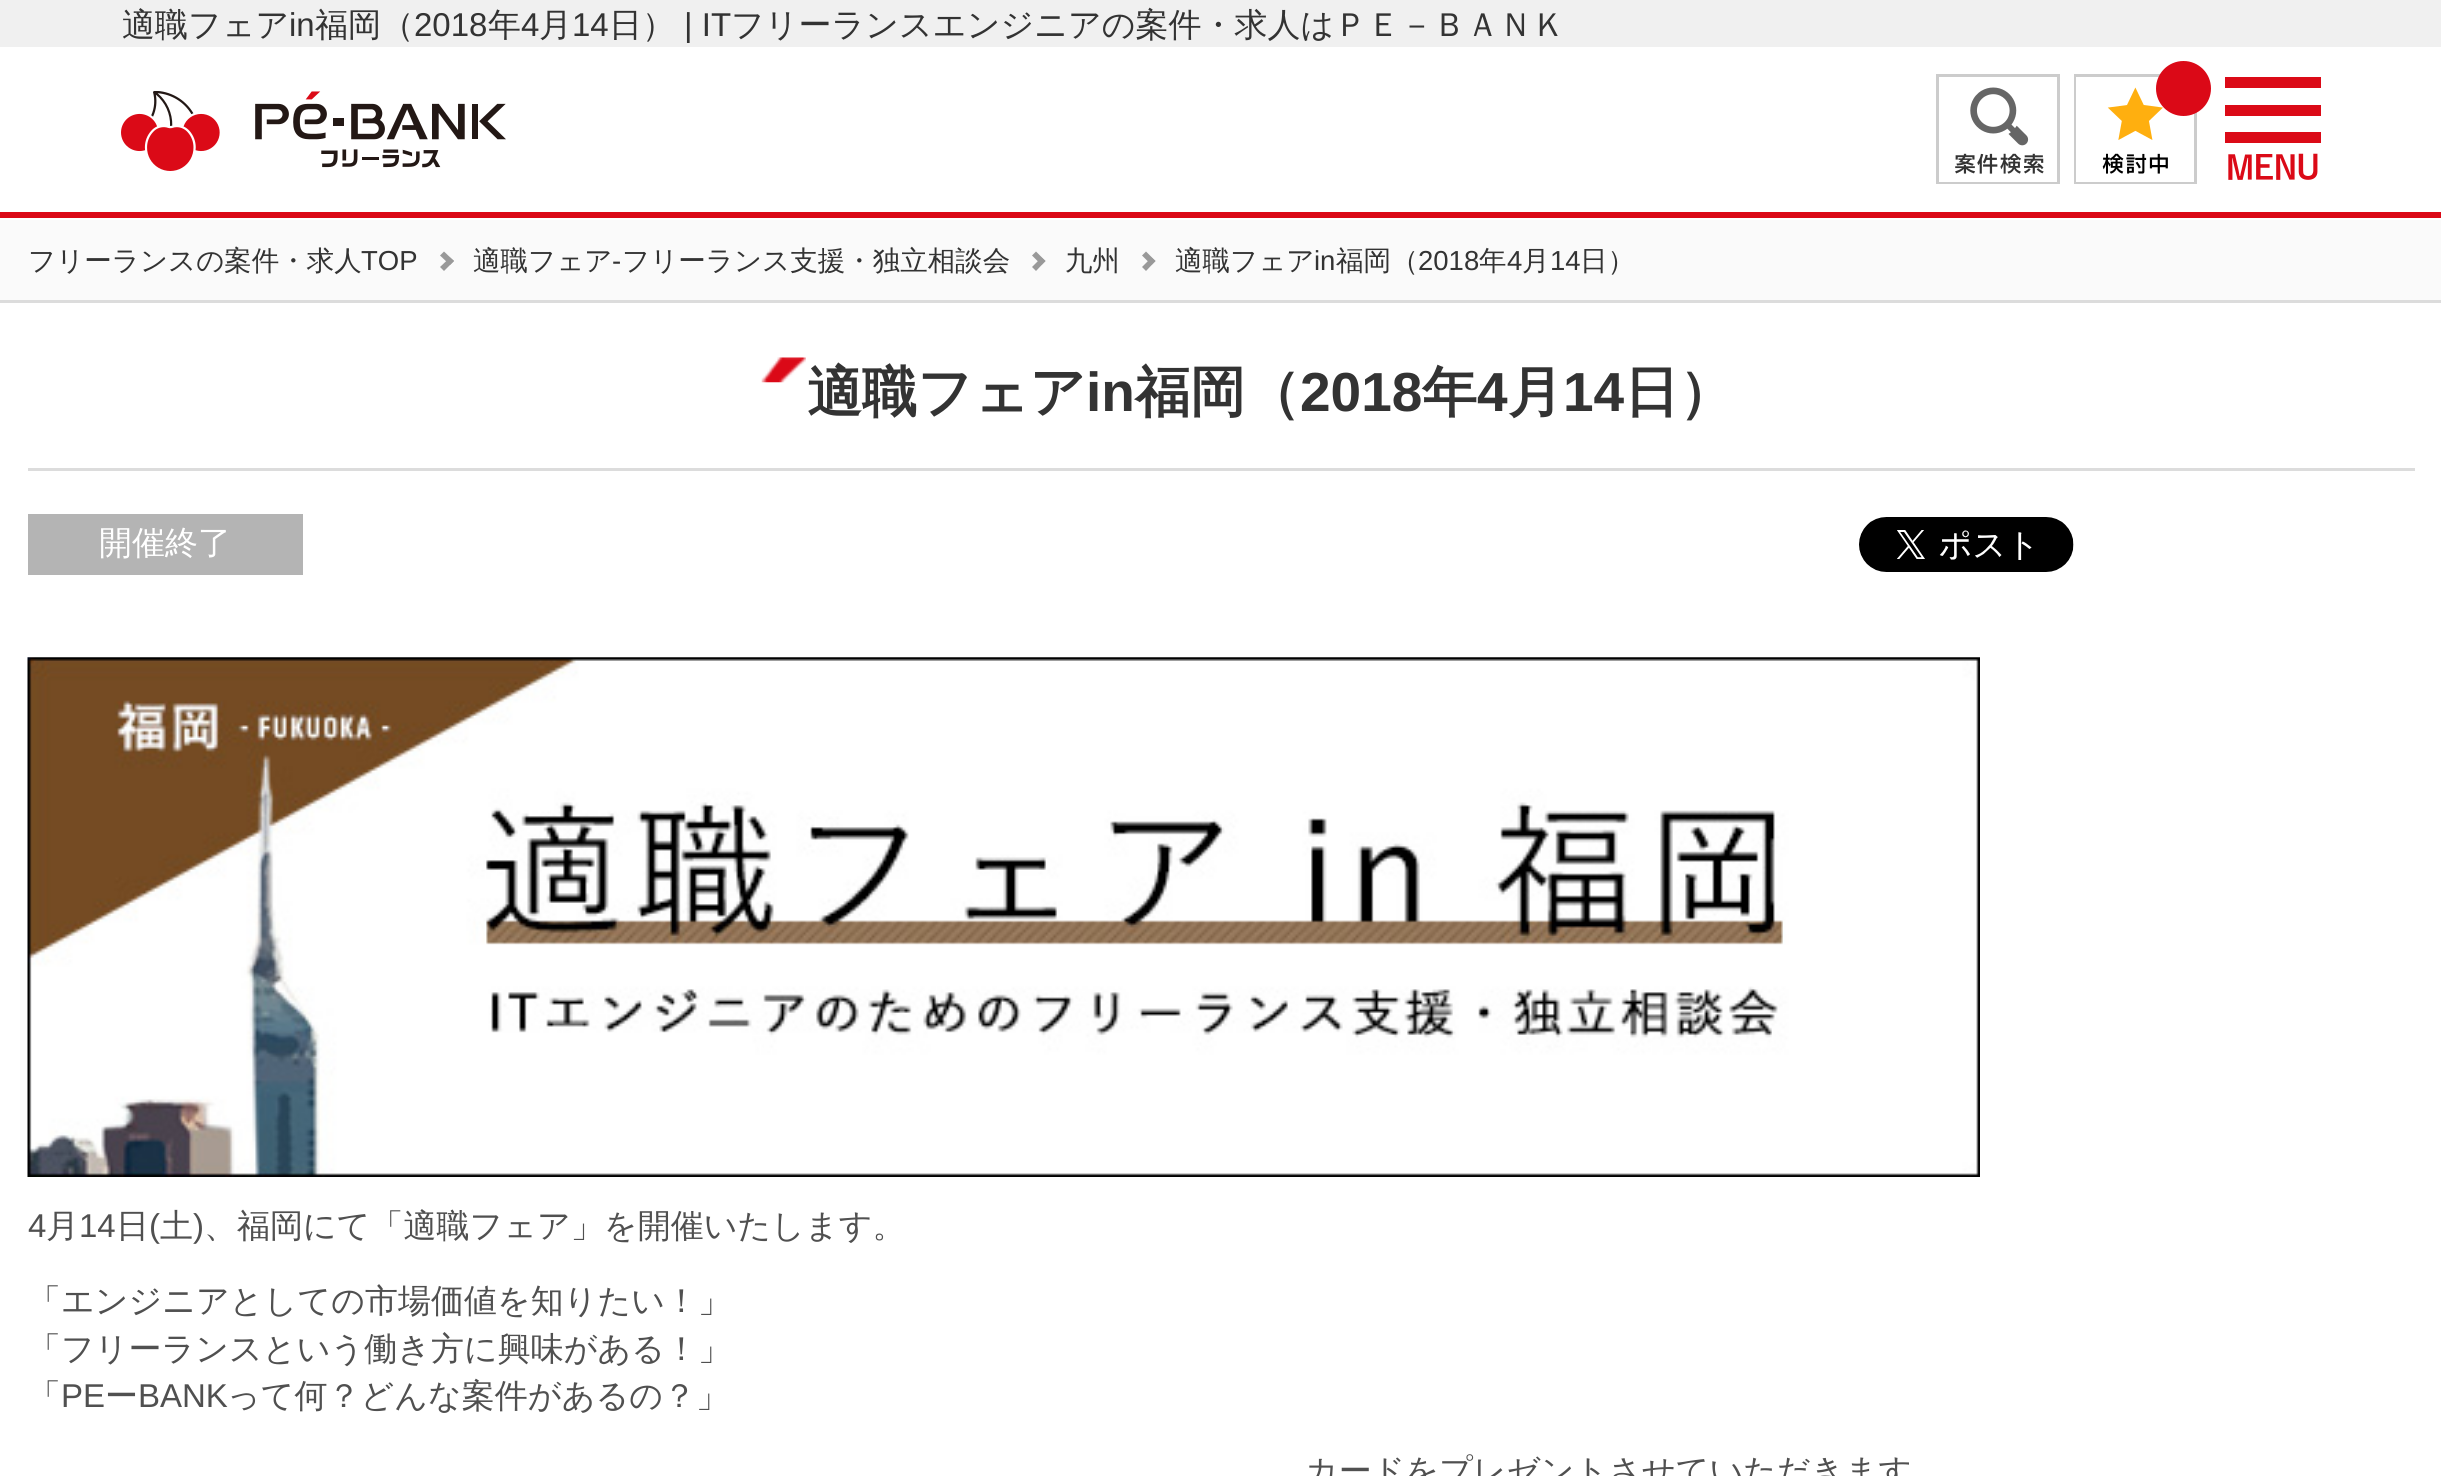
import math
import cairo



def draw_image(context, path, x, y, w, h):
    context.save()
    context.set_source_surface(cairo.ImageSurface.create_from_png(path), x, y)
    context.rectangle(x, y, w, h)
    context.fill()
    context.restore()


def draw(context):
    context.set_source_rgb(1, 1, 1)
    context.paint()
    context.set_source_rgb(219 / 255, 9 / 255, 23 / 255)
    context.rectangle(0, 212, 2441, 6)
    context.fill()
    context.set_source_rgb(240 / 255, 240 / 255, 240 / 255)
    context.rectangle(0, 0, 2441, 47)
    context.fill()
    draw_image(context, "images/1.png", 121, 91, 385, 80)
    context.rectangle(1937.5, 75.5, 121, 107)
    context.set_source_rgb(204 / 255, 204 / 255, 204 / 255)
    context.set_line_width(3)
    context.stroke()
    draw_image(context, "images/2.png", 1939, 87, 118, 95)
    context.rectangle(2075.5, 75.5, 120, 107)
    context.stroke()
    draw_image(context, "images/3.png", 2076, 77, 118, 105)
    context.set_source_rgb(219 / 255, 9 / 255, 23 / 255)
    context.arc(2183.5, 88.5, 27.5, 0, 2 * math.pi)
    context.fill()
    draw_image(context, "images/4.png", 2225, 77, 96, 103)
    context.set_source_rgb(250 / 255, 250 / 255, 250 / 255)
    context.rectangle(0, 220, 2441, 80)
    context.fill()
    context.set_source_rgb(220 / 255, 220 / 255, 220 / 255)
    context.rectangle(0, 300, 2441, 3)
    context.fill()
    context.set_source_rgb(153 / 255, 153 / 255, 153 / 255)
    context.new_path()
    context.move_to(444, 251.5)
    context.line_to(454, 261)
    context.line_to(450, 265)
    context.line_to(440, 255.5)
    context.close_path()
    context.fill()
    context.new_path()
    context.move_to(450, 257.5)
    context.line_to(454, 261)
    context.line_to(444, 271)
    context.line_to(440, 267)
    context.close_path()
    context.fill()
    context.new_path()
    context.move_to(1036, 251.5)
    context.line_to(1045.5, 261)
    context.line_to(1041.5, 265)
    context.line_to(1032, 255.5)
    context.close_path()
    context.fill()
    context.new_path()
    context.move_to(1041.5, 257.5)
    context.line_to(1045.5, 261)
    context.line_to(1036, 271)
    context.line_to(1032, 267)
    context.close_path()
    context.fill()
    context.new_path()
    context.move_to(1146, 251.5)
    context.line_to(1155.5, 261)
    context.line_to(1151.5, 265)
    context.line_to(1142, 255.5)
    context.close_path()
    context.fill()
    context.new_path()
    context.move_to(1151.5, 257.5)
    context.line_to(1155.5, 261)
    context.line_to(1146, 271)
    context.line_to(1142, 267)
    context.close_path()
    context.fill()
    context.set_source_rgb(220 / 255, 220 / 255, 220 / 255)
    context.rectangle(28, 468, 2387, 3)
    context.fill()
    draw_image(context, "images/5.png", 761, 357, 45, 26)
    context.set_source_rgb(180 / 255, 180 / 255, 180 / 255)
    context.rectangle(28, 514, 275, 61)
    context.fill()
    draw_image(context, "images/6.png", 1859, 517, 215, 55)
    draw_image(context, "images/7.png", 27, 657, 1953, 520)
    context.select_font_face("WenQuanYi Zen Hei Medium")
    context.set_font_size(33)
    context.set_source_rgb(51 / 255, 51 / 255, 51 / 255)
    context.move_to(122, 36)
    context.show_text("適職フェア")
    context.select_font_face("Liberation Sans")
    context.move_to(289, 36)
    context.show_text("in")
    context.select_font_face("WenQuanYi Zen Hei Medium")
    context.move_to(315, 36)
    context.show_text("福岡（")
    context.select_font_face("Liberation Sans")
    context.move_to(414, 36)
    context.show_text("2018")
    context.select_font_face("WenQuanYi Zen Hei Medium")
    context.move_to(488, 36)
    context.show_text("年")
    context.select_font_face("Liberation Sans")
    context.move_to(521, 36)
    context.show_text("4")
    context.select_font_face("WenQuanYi Zen Hei Medium")
    context.move_to(539, 36)
    context.show_text("月")
    context.select_font_face("Liberation Sans")
    context.move_to(572, 36)
    context.show_text("14")
    context.select_font_face("WenQuanYi Zen Hei Medium")
    context.move_to(609, 36)
    context.show_text("日）")
    context.select_font_face("Liberation Sans")
    context.move_to(684, 36)
    context.show_text("| IT")
    context.select_font_face("WenQuanYi Zen Hei Medium")
    context.move_to(731, 36)
    context.show_text("フリーランスエンジニアの案件・求人はＰＥ－ＢＡＮＫ")
    context.set_font_size(27.5)
    context.move_to(28, 270)
    context.show_text("フリーランスの案件・求人")
    context.select_font_face("Liberation Sans")
    context.move_to(361, 270)
    context.show_text("TOP")
    context.select_font_face("WenQuanYi Zen Hei Medium")
    context.move_to(473, 270)
    context.show_text("適職フェア")
    context.select_font_face("Liberation Sans")
    context.move_to(612, 270)
    context.show_text("-")
    context.select_font_face("WenQuanYi Zen Hei Medium")
    context.move_to(622, 270)
    context.show_text("フリーランス支援・独立相談会")
    context.move_to(1065, 270)
    context.show_text("九州")
    context.move_to(1175, 270)
    context.show_text("適職フェア")
    context.select_font_face("Liberation Sans")
    context.move_to(1314, 270)
    context.show_text("in")
    context.select_font_face("WenQuanYi Zen Hei Medium")
    context.move_to(1336, 270)
    context.show_text("福岡（")
    context.select_font_face("Liberation Sans")
    context.move_to(1418, 270)
    context.show_text("2018")
    context.select_font_face("WenQuanYi Zen Hei Medium")
    context.move_to(1479, 270)
    context.show_text("年")
    context.select_font_face("Liberation Sans")
    context.move_to(1507, 270)
    context.show_text("4")
    context.select_font_face("WenQuanYi Zen Hei Medium")
    context.move_to(1522, 270)
    context.show_text("月")
    context.select_font_face("Liberation Sans")
    context.move_to(1550, 270)
    context.show_text("14")
    context.select_font_face("WenQuanYi Zen Hei Medium")
    context.move_to(1580, 270)
    context.show_text("日）")
    context.select_font_face("WenQuanYi Zen Hei", cairo.FontSlant.NORMAL, cairo.FontWeight.BOLD)
    context.set_font_size(55)
    context.move_to(807, 411)
    context.show_text("適職フェア")
    context.select_font_face("Liberation Sans", cairo.FontSlant.NORMAL, cairo.FontWeight.BOLD)
    context.move_to(1086, 411)
    context.show_text("in")
    context.select_font_face("WenQuanYi Zen Hei", cairo.FontSlant.NORMAL, cairo.FontWeight.BOLD)
    context.move_to(1135, 411)
    context.show_text("福岡（")
    context.select_font_face("Liberation Sans", cairo.FontSlant.NORMAL, cairo.FontWeight.BOLD)
    context.move_to(1300, 411)
    context.show_text("2018")
    context.select_font_face("WenQuanYi Zen Hei", cairo.FontSlant.NORMAL, cairo.FontWeight.BOLD)
    context.move_to(1422, 411)
    context.show_text("年")
    context.select_font_face("Liberation Sans", cairo.FontSlant.NORMAL, cairo.FontWeight.BOLD)
    context.move_to(1477, 411)
    context.show_text("4")
    context.select_font_face("WenQuanYi Zen Hei", cairo.FontSlant.NORMAL, cairo.FontWeight.BOLD)
    context.move_to(1508, 411)
    context.show_text("月")
    context.select_font_face("Liberation Sans", cairo.FontSlant.NORMAL, cairo.FontWeight.BOLD)
    context.move_to(1563, 411)
    context.show_text("14")
    context.select_font_face("WenQuanYi Zen Hei", cairo.FontSlant.NORMAL, cairo.FontWeight.BOLD)
    context.move_to(1624, 411)
    context.show_text("日）")
    context.select_font_face("WenQuanYi Zen Hei Medium")
    context.set_font_size(33)
    context.set_source_rgb(1, 1, 1)
    context.move_to(99, 554)
    context.show_text("開催終了")
    context.select_font_face("Liberation Sans")
    context.set_source_rgb(80 / 255, 80 / 255, 80 / 255)
    context.move_to(28, 1237)
    context.show_text("4")
    context.select_font_face("WenQuanYi Zen Hei Medium")
    context.move_to(46, 1237)
    context.show_text("月")
    context.select_font_face("Liberation Sans")
    context.move_to(79, 1237)
    context.show_text("14")
    context.select_font_face("WenQuanYi Zen Hei Medium")
    context.move_to(116, 1237)
    context.show_text("日")
    context.select_font_face("Liberation Sans")
    context.move_to(149, 1237)
    context.show_text("(")
    context.select_font_face("WenQuanYi Zen Hei Medium")
    context.move_to(160, 1237)
    context.show_text("土")
    context.select_font_face("Liberation Sans")
    context.move_to(193, 1237)
    context.show_text(")")
    context.select_font_face("WenQuanYi Zen Hei Medium")
    context.move_to(204, 1237)
    context.show_text("、福岡にて「適職フェア」を開催いたします。")
    context.move_to(28, 1312)
    context.show_text("「エンジニアとしての市場価値を知りたい！」")
    context.move_to(28, 1360)
    context.show_text("「フリーランスという働き方に興味がある！」")
    context.move_to(28, 1407)
    context.show_text("「")
    context.select_font_face("Liberation Sans")
    context.move_to(61, 1407)
    context.show_text("PE")
    context.select_font_face("WenQuanYi Zen Hei Medium")
    context.move_to(105, 1407)
    context.show_text("ー")
    context.select_font_face("Liberation Sans")
    context.move_to(138, 1407)
    context.show_text("BANK")
    context.select_font_face("WenQuanYi Zen Hei Medium")
    context.move_to(227, 1407)
    context.show_text("って何？どんな案件があるの？」")
    context.move_to(1305, 1482)
    context.show_text("カードをプレゼントさせていただきます")


surface = cairo.ImageSurface(cairo.Format.RGB24, 2441, 1476)
context = cairo.Context(surface)
options = cairo.FontOptions()
options.set_hint_metrics(cairo.HintMetrics.OFF)
options.set_hint_style(cairo.HintStyle.NONE)
context.set_font_options(options)
context.set_miter_limit(4)
draw(context)
surface.write_to_png("out.png")
